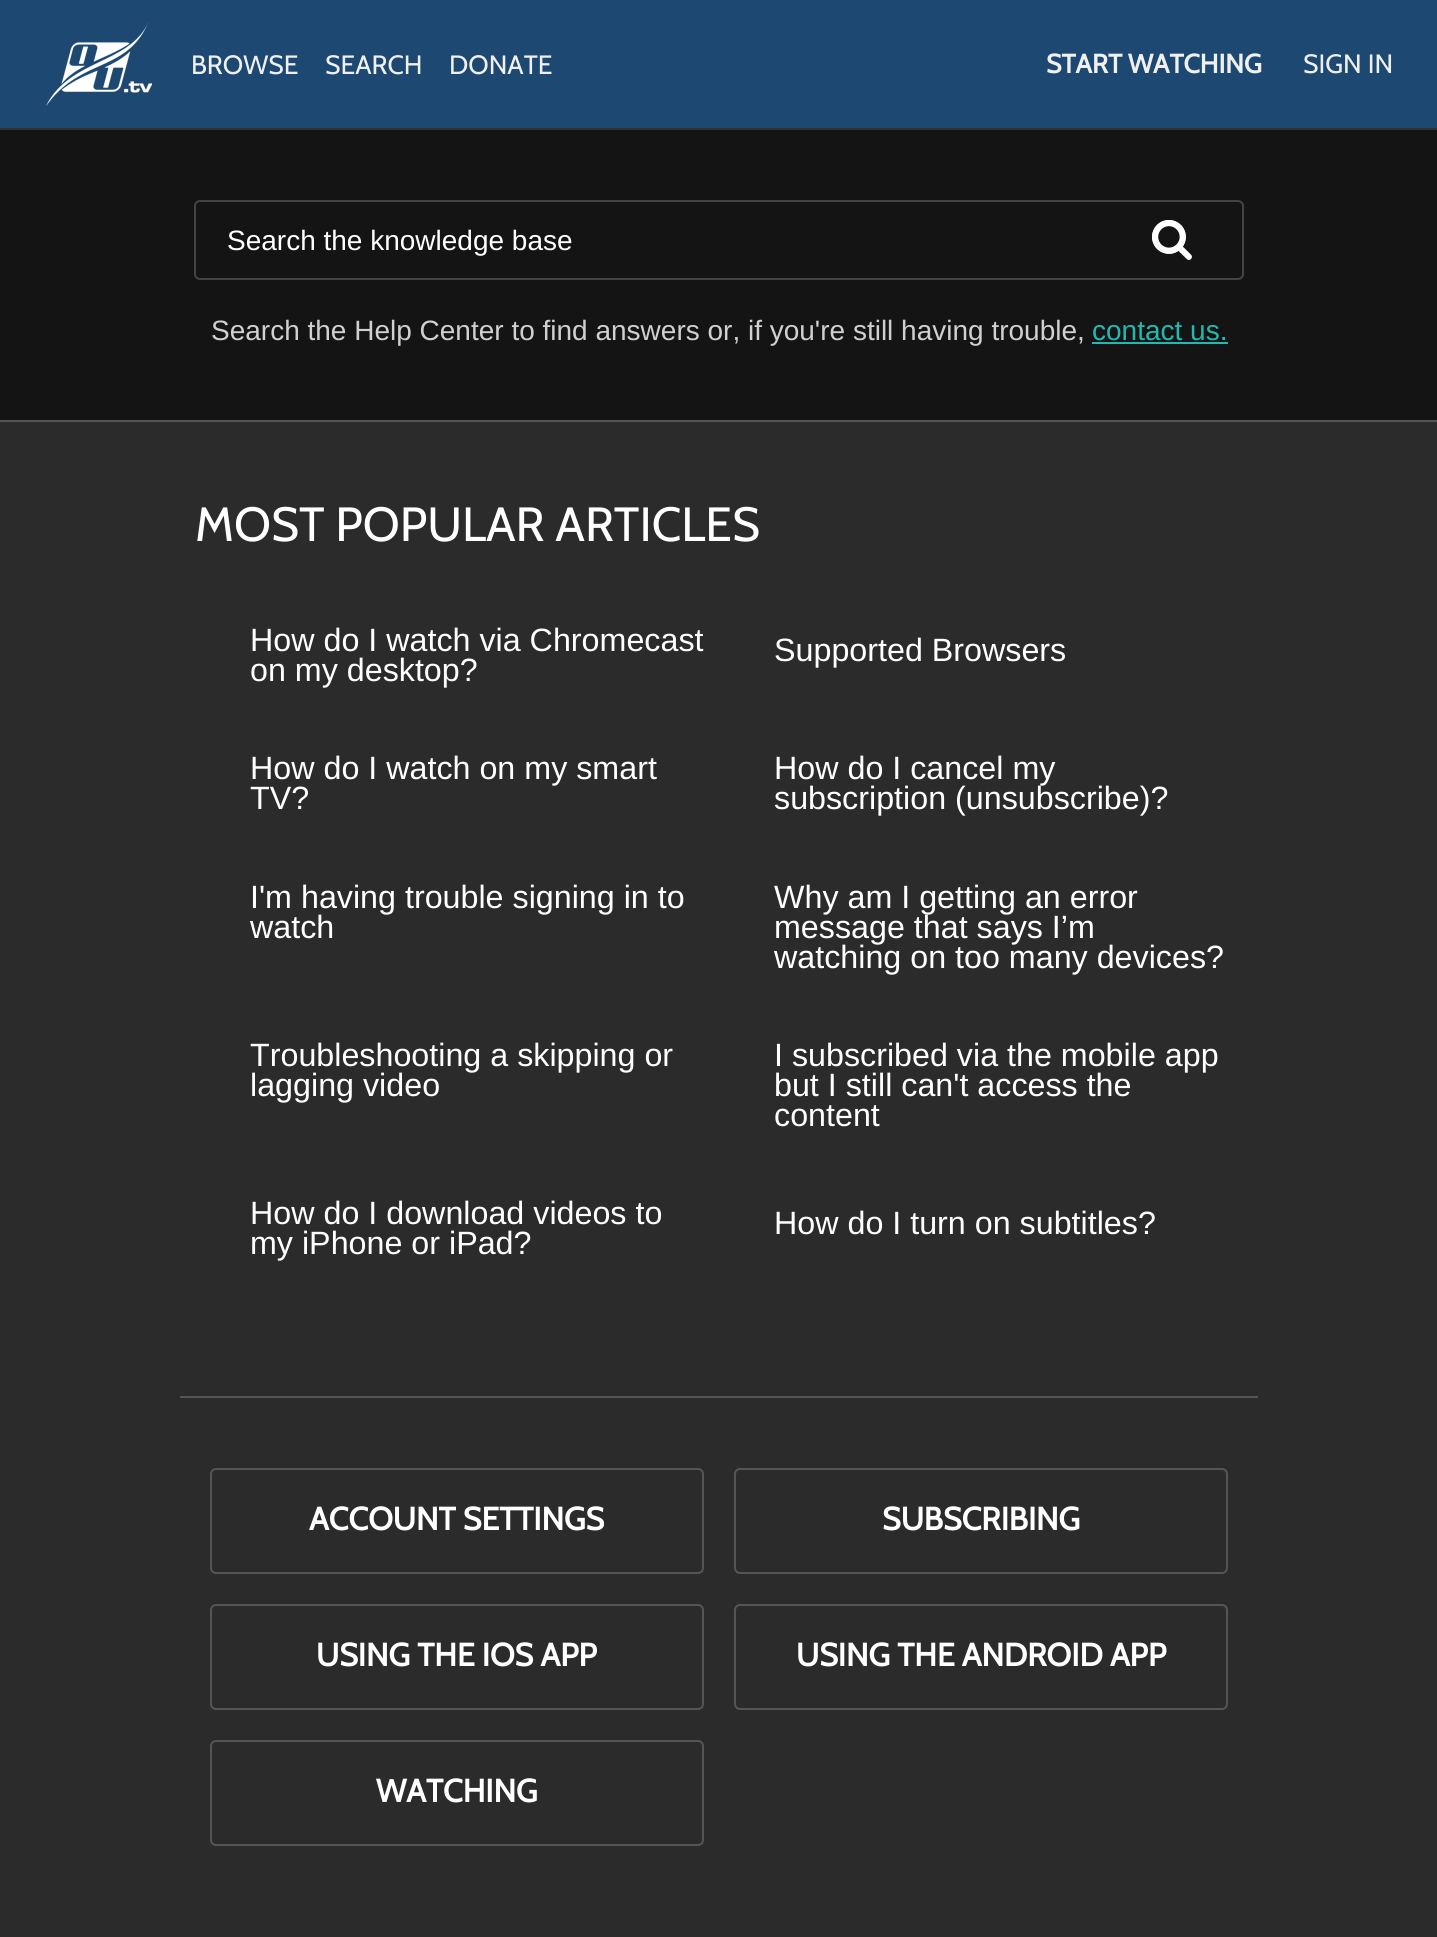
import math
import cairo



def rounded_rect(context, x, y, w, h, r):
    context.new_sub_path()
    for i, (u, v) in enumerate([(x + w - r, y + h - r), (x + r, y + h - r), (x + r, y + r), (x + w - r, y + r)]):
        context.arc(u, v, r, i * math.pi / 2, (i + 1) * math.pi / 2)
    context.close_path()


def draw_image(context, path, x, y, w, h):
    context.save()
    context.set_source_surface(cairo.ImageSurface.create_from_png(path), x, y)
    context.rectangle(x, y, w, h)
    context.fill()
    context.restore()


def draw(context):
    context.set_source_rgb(20 / 255, 20 / 255, 20 / 255)
    context.paint()
    context.set_source_rgb(29 / 255, 72 / 255, 113 / 255)
    context.rectangle(0, 0, 1437, 128)
    context.fill()
    context.set_source_rgb(50 / 255, 50 / 255, 50 / 255)
    context.rectangle(0, 128, 1437, 2)
    context.fill()
    draw_image(context, "images/1.png", 46, 22, 106, 84)
    draw_image(context, "images/2.png", 1152, 220, 40, 40)
    rounded_rect(context, 195, 201, 1048, 78, 5)
    context.set_source_rgb(67 / 255, 67 / 255, 67 / 255)
    context.stroke()
    context.set_source_rgb(34 / 255, 185 / 255, 176 / 255)
    context.rectangle(1092, 342, 136, 2)
    context.fill()
    context.set_source_rgb(43 / 255, 43 / 255, 43 / 255)
    context.rectangle(0, 422, 1437, 1515)
    context.fill()
    context.set_source_rgb(85 / 255, 85 / 255, 85 / 255)
    context.rectangle(0, 420, 1437, 2)
    context.fill()
    context.rectangle(180, 1396, 1078, 2)
    context.fill()
    rounded_rect(context, 211, 1469, 492, 104, 5)
    context.stroke()
    rounded_rect(context, 735, 1469, 492, 104, 5)
    context.stroke()
    rounded_rect(context, 211, 1605, 492, 104, 5)
    context.stroke()
    rounded_rect(context, 735, 1605, 492, 104, 5)
    context.stroke()
    rounded_rect(context, 211, 1741, 492, 104, 5)
    context.stroke()
    context.select_font_face("Cabin")
    context.set_font_size(26.5)
    context.set_source_rgb(240 / 255, 240 / 255, 240 / 255)
    context.move_to(191, 74)
    context.show_text("BROWSE")
    context.move_to(325, 74)
    context.show_text("SEARCH")
    context.move_to(449, 74)
    context.show_text("DONATE")
    context.select_font_face("Cabin", cairo.FontSlant.NORMAL, cairo.FontWeight.BOLD)
    context.move_to(1046, 73)
    context.show_text("START WATCHING")
    context.select_font_face("Cabin")
    context.move_to(1303, 73)
    context.show_text("SIGN IN")
    context.select_font_face("Liberation Sans")
    context.set_font_size(28)
    context.set_source_rgb(1, 1, 1)
    context.move_to(227, 250)
    context.show_text("Search the knowledge base")
    context.set_source_rgb(208 / 255, 208 / 255, 208 / 255)
    context.move_to(211, 340)
    context.show_text("Search the Help Center to find answers or, if you're still having trouble,")
    context.set_source_rgb(34 / 255, 185 / 255, 176 / 255)
    context.move_to(1092, 340)
    context.show_text("contact us.")
    context.select_font_face("Cabin")
    context.set_font_size(48)
    context.set_source_rgb(1, 1, 1)
    context.move_to(195, 541)
    context.show_text("MOST POPULAR ARTICLES")
    context.select_font_face("Liberation Sans")
    context.set_font_size(32.25)
    context.move_to(250, 651)
    context.show_text("How do I watch via Chromecast")
    context.move_to(250, 681)
    context.show_text("on my desktop?")
    context.move_to(774, 661)
    context.show_text("Supported Browsers")
    context.move_to(250, 779)
    context.show_text("How do I watch on my smart")
    context.move_to(250, 809)
    context.show_text("TV?")
    context.move_to(774, 779)
    context.show_text("How do I cancel my")
    context.move_to(774, 809)
    context.show_text("subscription (unsubscribe)?")
    context.move_to(250, 908)
    context.show_text("I'm having trouble signing in to")
    context.move_to(250, 938)
    context.show_text("watch")
    context.move_to(774, 908)
    context.show_text("Why am I getting an error")
    context.move_to(774, 938)
    context.show_text("message that says I’m")
    context.move_to(774, 968)
    context.show_text("watching on too many devices?")
    context.move_to(250, 1066)
    context.show_text("Troubleshooting a skipping or")
    context.move_to(250, 1096)
    context.show_text("lagging video")
    context.move_to(774, 1066)
    context.show_text("I subscribed via the mobile app")
    context.move_to(774, 1096)
    context.show_text("but I still can't access the")
    context.move_to(774, 1126)
    context.show_text("content")
    context.move_to(250, 1224)
    context.show_text("How do I download videos to")
    context.move_to(250, 1254)
    context.show_text("my iPhone or iPad?")
    context.move_to(774, 1234)
    context.show_text("How do I turn on subtitles?")
    context.select_font_face("Cabin", cairo.FontSlant.NORMAL, cairo.FontWeight.BOLD)
    context.set_font_size(32)
    context.move_to(309, 1530)
    context.show_text("ACCOUNT SETTINGS")
    context.move_to(882, 1530)
    context.show_text("SUBSCRIBING")
    context.move_to(316, 1666)
    context.show_text("USING THE IOS APP")
    context.move_to(796, 1666)
    context.show_text("USING THE ANDROID APP")
    context.move_to(376, 1802)
    context.show_text("WATCHING")


surface = cairo.ImageSurface(cairo.Format.RGB24, 1437, 1937)
context = cairo.Context(surface)
options = cairo.FontOptions()
options.set_hint_metrics(cairo.HintMetrics.OFF)
options.set_hint_style(cairo.HintStyle.NONE)
context.set_font_options(options)
context.set_miter_limit(4)
draw(context)
surface.write_to_png("out.png")
